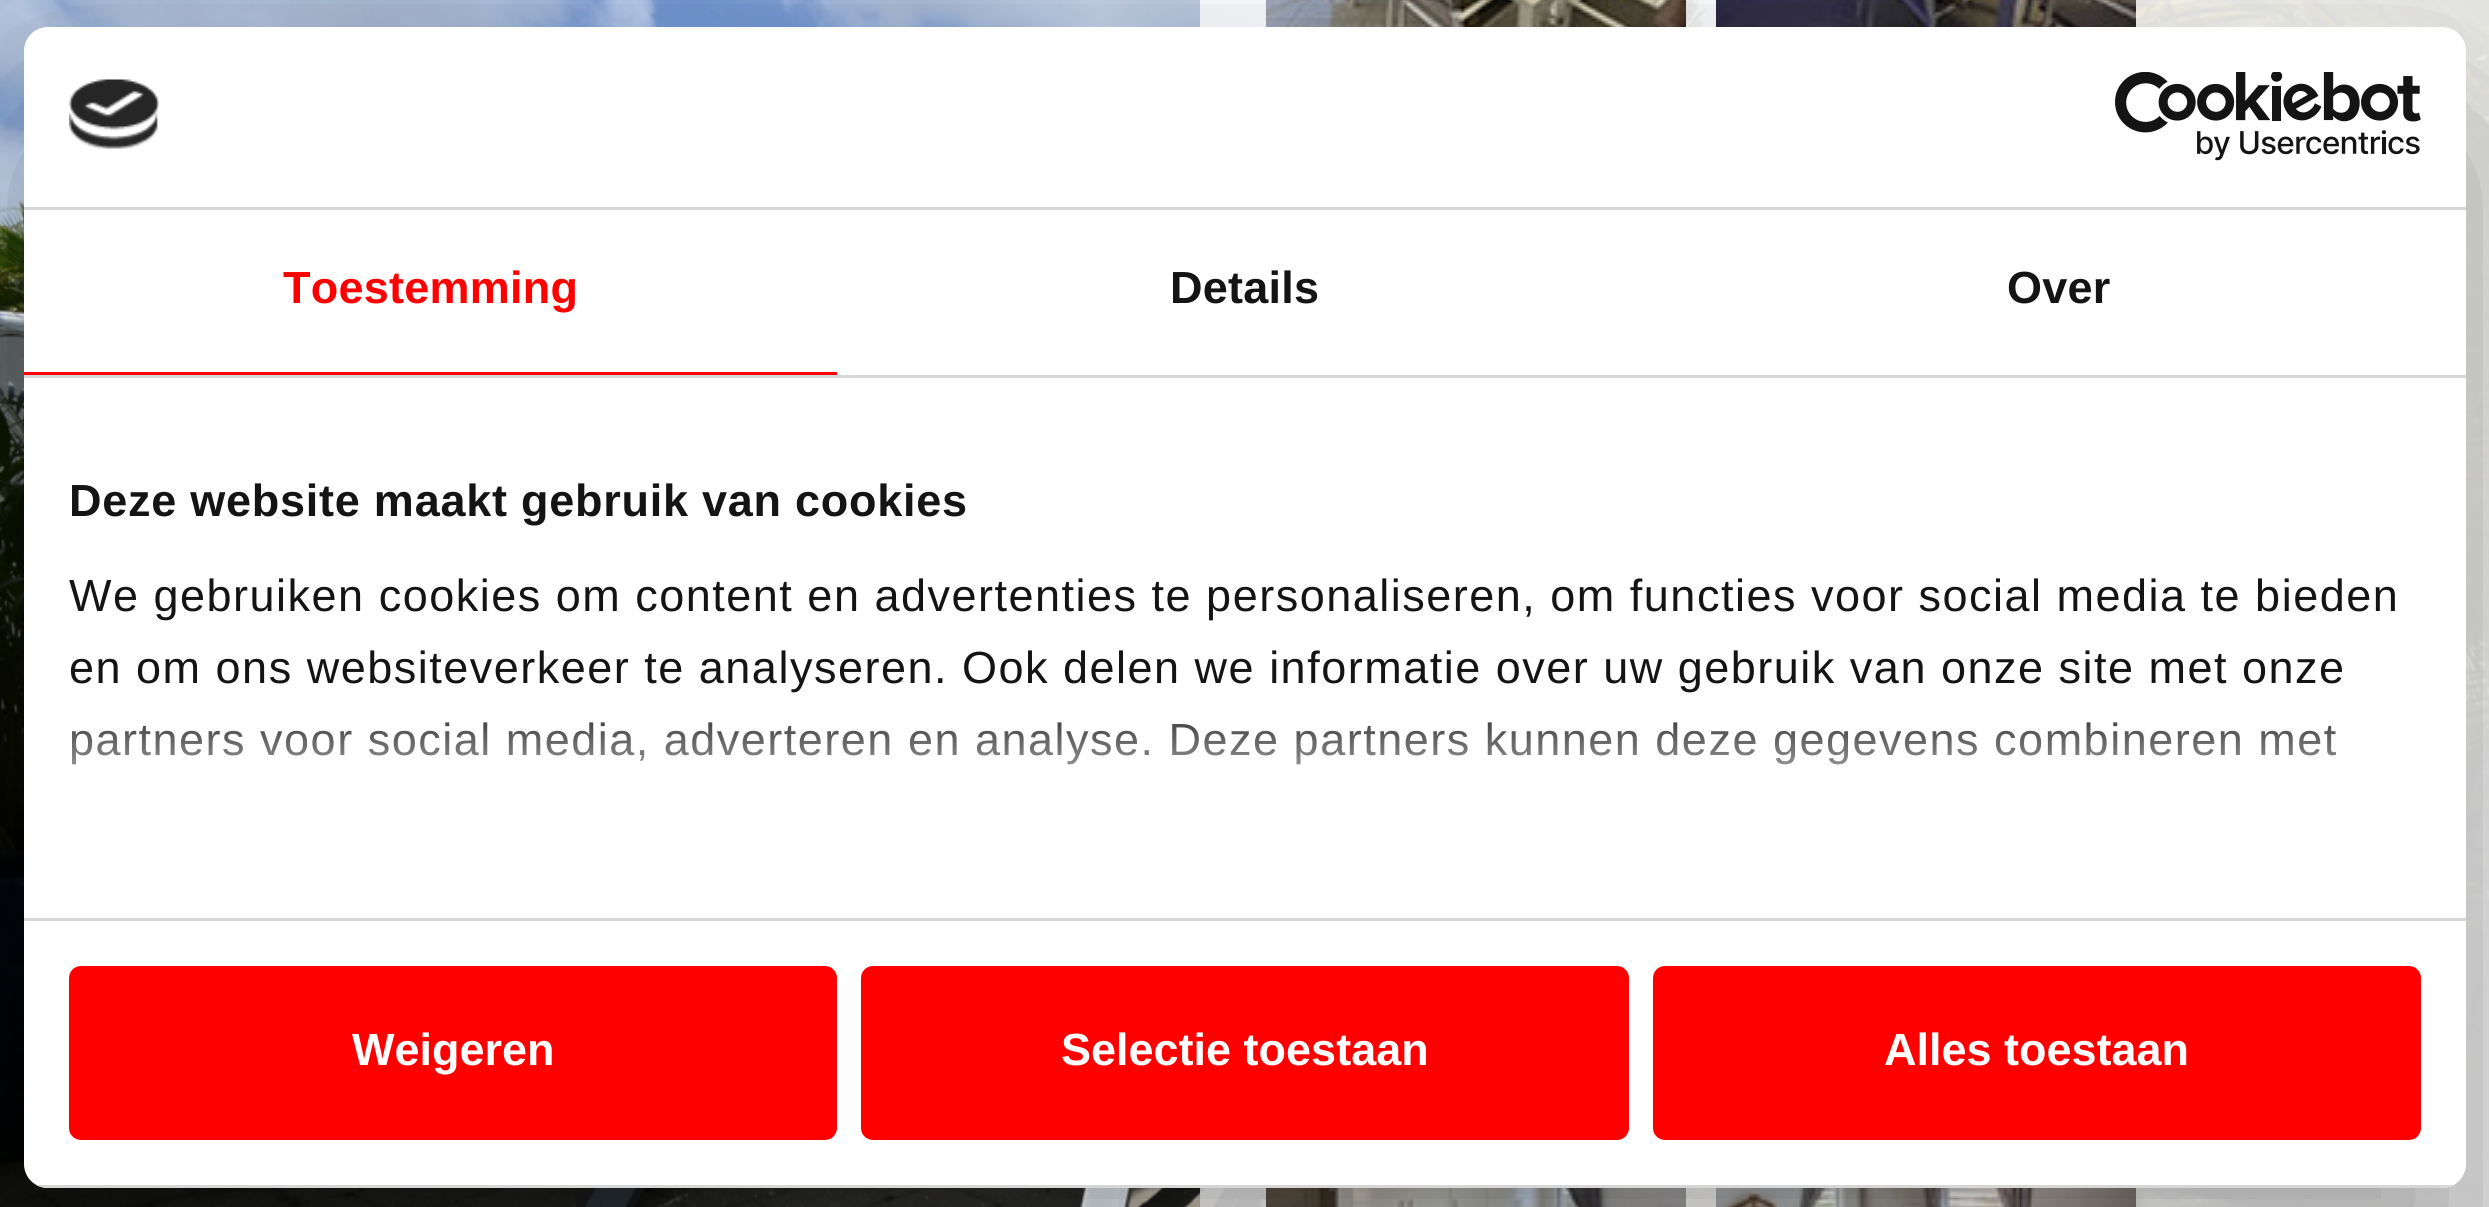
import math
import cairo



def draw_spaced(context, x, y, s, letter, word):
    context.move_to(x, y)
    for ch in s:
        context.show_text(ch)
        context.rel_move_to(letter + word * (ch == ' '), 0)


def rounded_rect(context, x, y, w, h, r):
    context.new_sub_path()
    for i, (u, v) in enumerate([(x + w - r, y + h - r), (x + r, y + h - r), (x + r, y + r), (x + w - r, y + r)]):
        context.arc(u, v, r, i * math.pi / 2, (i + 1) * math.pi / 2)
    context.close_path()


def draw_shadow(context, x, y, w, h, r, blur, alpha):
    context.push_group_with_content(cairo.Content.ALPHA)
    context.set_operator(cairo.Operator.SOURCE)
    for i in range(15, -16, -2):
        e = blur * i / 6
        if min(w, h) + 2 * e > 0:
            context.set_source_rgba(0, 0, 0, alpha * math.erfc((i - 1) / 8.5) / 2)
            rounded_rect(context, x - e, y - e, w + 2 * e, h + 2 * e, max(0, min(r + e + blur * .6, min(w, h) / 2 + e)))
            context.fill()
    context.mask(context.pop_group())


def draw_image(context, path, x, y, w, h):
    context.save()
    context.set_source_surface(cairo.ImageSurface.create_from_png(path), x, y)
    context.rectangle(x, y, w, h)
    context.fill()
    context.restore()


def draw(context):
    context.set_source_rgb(1, 1, 1)
    context.paint()
    draw_image(context, "images/1.png", 0, 0, 2489, 1207)
    context.set_source_rgba(1, 1, 1, 0.9)
    context.rectangle(1200, 0, 1289, 1207)
    context.fill()
    draw_image(context, "images/2.png", 1266, 0, 420, 27)
    draw_image(context, "images/3.png", 1716, 0, 420, 27)
    draw_image(context, "images/4.png", 1266, 1188, 420, 19)
    draw_image(context, "images/5.png", 1716, 1188, 420, 19)
    context.set_source_rgb(0, 0, 0)
    draw_shadow(context, 24, 123, 2442, 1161, 24, 102, 0.3)
    context.set_source_rgb(1, 1, 1)
    rounded_rect(context, 24, 27, 2442, 1161, 24)
    context.fill()
    context.set_source_rgb(214 / 255, 214 / 255, 214 / 255)
    context.rectangle(24, 207, 2442, 3)
    context.fill()
    draw_image(context, "images/6.png", 69, 79, 90, 70)
    draw_image(context, "images/7.png", 2115, 72, 306, 89)
    context.rectangle(24, 375, 2442, 3)
    context.fill()
    context.set_source_rgb(1, 0, 0)
    context.rectangle(24, 372, 813, 3)
    context.fill()
    context.set_source_rgb(214 / 255, 214 / 255, 214 / 255)
    context.rectangle(24, 918, 2442, 3)
    context.fill()
    context.save()
    rounded_rect(context, 24, 27, 2442, 1161, 24)
    context.clip()
    context.rectangle(36, 1185, 2418, 3)
    context.fill()
    context.restore()
    context.set_source_rgb(1, 0, 0)
    rounded_rect(context, 72, 969, 762, 168, 9)
    context.fill_preserve()
    context.set_line_width(6)
    context.stroke()
    rounded_rect(context, 864, 969, 762, 168, 9)
    context.fill_preserve()
    context.stroke()
    rounded_rect(context, 1656, 969, 762, 168, 9)
    context.fill_preserve()
    context.stroke()
    context.select_font_face("Liberation Sans", cairo.FontSlant.NORMAL, cairo.FontWeight.BOLD)
    context.set_font_size(45)
    draw_spaced(context, 283, 303, "Toestemming", 0.25, 0)
    context.set_source_rgb(20 / 255, 20 / 255, 20 / 255)
    draw_spaced(context, 1170, 303, "Details", 0.25, 0)
    draw_spaced(context, 2007, 303, "Over", 0.25, 0)
    draw_spaced(context, 69, 516, "Deze website maakt gebruik van cookies", 0.75, 0)
    context.select_font_face("Liberation Sans")
    draw_spaced(context, 69, 611, "We gebruiken cookies om content en advertenties te personaliseren, om functies voor social media te bieden", 1.5, 0)
    draw_spaced(context, 69, 683, "en om ons websiteverkeer te analyseren. Ook delen we informatie over uw gebruik van onze site met onze", 1.5, 0)
    draw_spaced(context, 69, 755, "partners voor social media, adverteren en analyse. Deze partners kunnen deze gegevens combineren met", 1.5, 0)
    gradient = cairo.LinearGradient(1226, 917, 1226, 692)
    gradient.add_color_stop_rgba(0, 1, 1, 1, 1)
    gradient.add_color_stop_rgba(0.5, 1, 1, 1, 0.8)
    gradient.add_color_stop_rgba(1, 1, 1, 1, 0)
    context.set_source(gradient)
    context.rectangle(71, 722, 2265, 43)
    context.fill()
    context.select_font_face("Liberation Sans", cairo.FontSlant.NORMAL, cairo.FontWeight.BOLD)
    context.set_source_rgb(1, 1, 1)
    context.move_to(352, 1065)
    context.show_text("Weigeren")
    context.move_to(1061, 1065)
    context.show_text("Selectie toestaan")
    context.move_to(1884, 1065)
    context.show_text("Alles toestaan")


surface = cairo.ImageSurface(cairo.Format.RGB24, 2489, 1207)
context = cairo.Context(surface)
options = cairo.FontOptions()
options.set_hint_metrics(cairo.HintMetrics.OFF)
options.set_hint_style(cairo.HintStyle.NONE)
context.set_font_options(options)
context.set_miter_limit(4)
draw(context)
surface.write_to_png("out.png")
